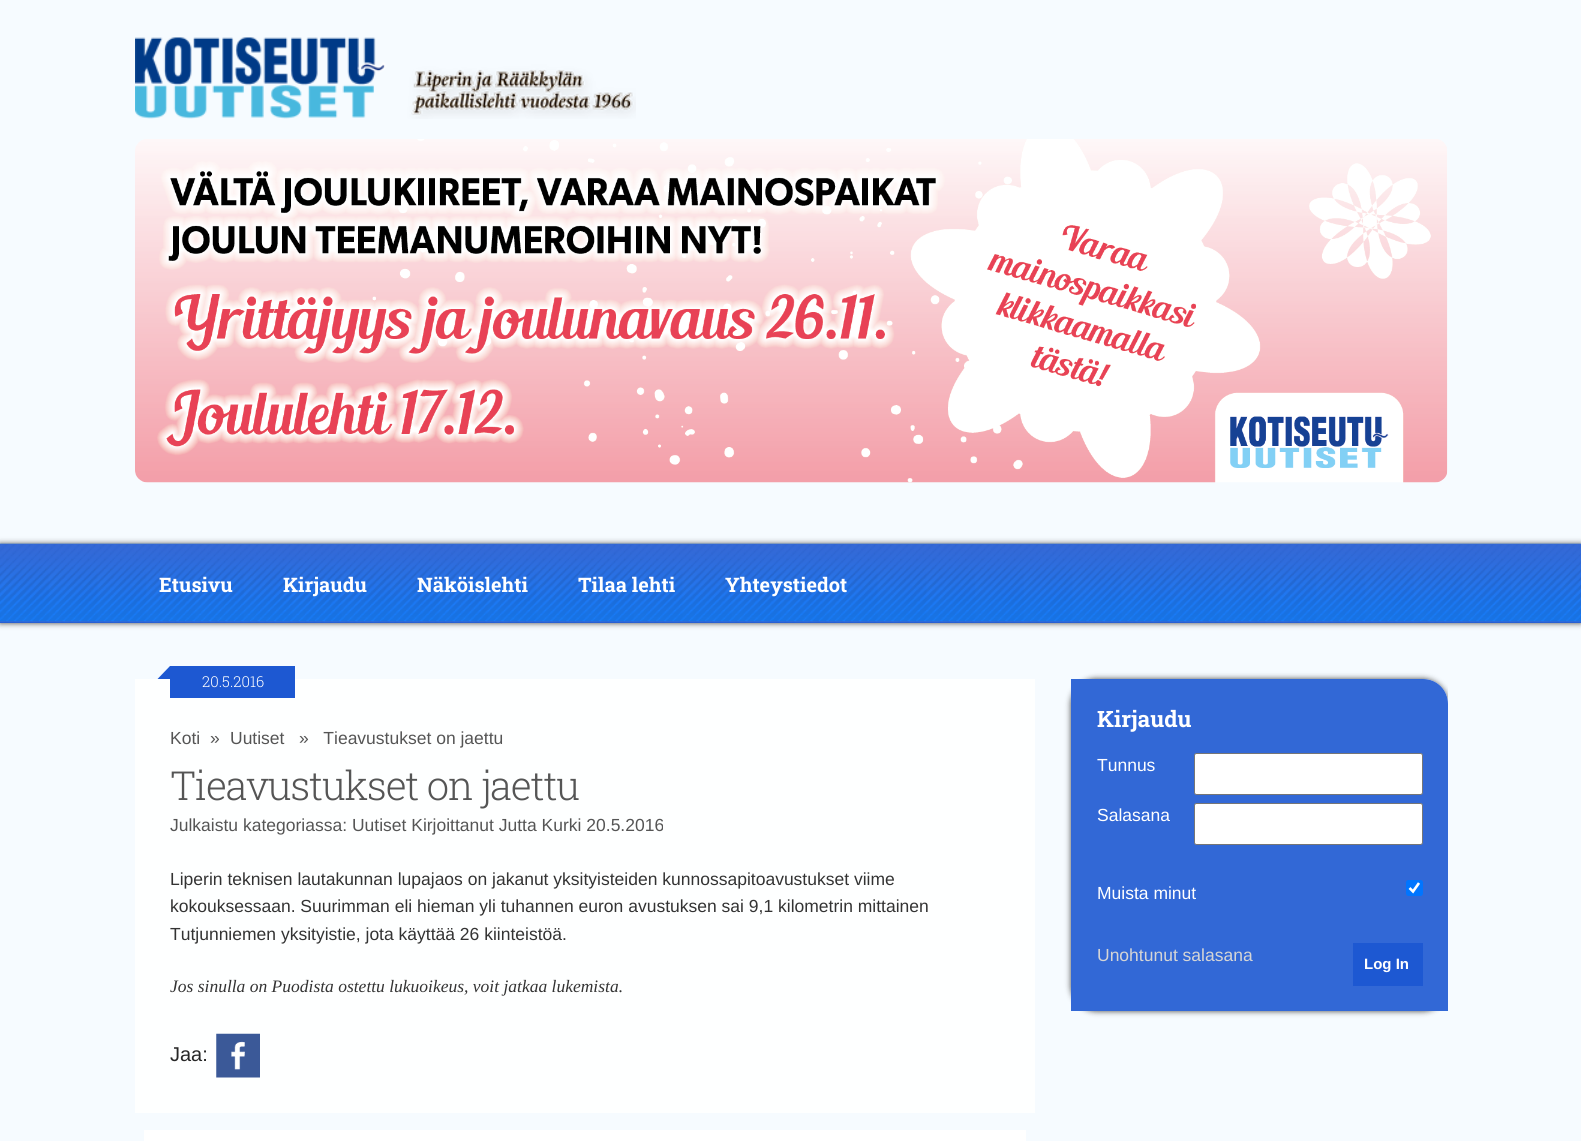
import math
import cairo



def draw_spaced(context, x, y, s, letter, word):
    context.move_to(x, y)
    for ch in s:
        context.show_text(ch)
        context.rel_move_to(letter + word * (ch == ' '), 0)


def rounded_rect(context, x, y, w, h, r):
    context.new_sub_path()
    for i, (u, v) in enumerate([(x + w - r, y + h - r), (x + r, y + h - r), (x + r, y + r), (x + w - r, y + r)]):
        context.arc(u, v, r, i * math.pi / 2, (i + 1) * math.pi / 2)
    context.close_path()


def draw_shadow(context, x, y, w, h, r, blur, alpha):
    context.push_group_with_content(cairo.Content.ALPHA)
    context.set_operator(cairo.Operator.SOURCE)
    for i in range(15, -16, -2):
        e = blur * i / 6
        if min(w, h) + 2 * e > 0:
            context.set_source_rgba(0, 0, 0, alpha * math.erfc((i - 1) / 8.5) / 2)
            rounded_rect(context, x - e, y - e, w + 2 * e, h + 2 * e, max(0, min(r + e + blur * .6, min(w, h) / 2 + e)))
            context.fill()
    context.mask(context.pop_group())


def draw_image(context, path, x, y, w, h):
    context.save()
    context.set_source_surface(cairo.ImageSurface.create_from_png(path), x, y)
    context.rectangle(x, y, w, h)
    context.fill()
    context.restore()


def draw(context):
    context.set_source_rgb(246 / 255, 251 / 255, 1)
    context.paint()
    draw_image(context, "images/1.png", 135, 37, 501, 82)
    draw_image(context, "images/2.png", 135, 139, 1313, 344)
    context.set_source_rgb(68 / 255, 68 / 255, 68 / 255)
    draw_shadow(context, 0, 544, 1581, 79, 0, 3, 1)
    context.set_source_rgb(29 / 255, 88 / 255, 210 / 255)
    context.rectangle(0, 622, 1581, 1)
    context.fill()
    draw_image(context, "images/3.png", 0, 543, 1581, 80)
    context.set_source_rgb(254 / 255, 1, 1)
    context.rectangle(135, 679, 900, 434)
    context.fill()
    context.set_source_rgb(29 / 255, 88 / 255, 210 / 255)
    context.rectangle(170, 666, 125, 32)
    context.fill()
    context.new_path()
    context.move_to(170, 679)
    context.line_to(157.5, 679)
    context.line_to(170, 666)
    context.close_path()
    context.fill()
    draw_image(context, "images/4.png", 216, 1033, 44, 45)
    context.set_source_rgb(1, 1, 1)
    context.rectangle(144, 1130, 882, 11)
    context.fill()
    context.save()
    context.rectangle(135, 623, 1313, 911)
    context.clip()
    context.set_fill_rule(cairo.FillRule.EVEN_ODD)
    context.new_path()
    context.move_to(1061, 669)
    context.line_to(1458, 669)
    context.line_to(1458, 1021)
    context.line_to(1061, 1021)
    context.close_path()
    context.move_to(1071, 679)
    context.line_to(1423, 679)
    context.curve_to(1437, 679, 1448, 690, 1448, 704)
    context.line_to(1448, 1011)
    context.line_to(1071, 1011)
    context.close_path()
    context.clip()
    context.set_source_rgb(68 / 255, 68 / 255, 68 / 255)
    draw_shadow(context, 1071, 679, 377, 332, 25, 3, 1)
    context.restore()
    context.set_source_rgba(29 / 255, 88 / 255, 210 / 255, 0.9)
    context.new_path()
    context.move_to(1071, 679)
    context.line_to(1423, 679)
    context.curve_to(1437, 679, 1448, 690, 1448, 704)
    context.line_to(1448, 1011)
    context.line_to(1071, 1011)
    context.close_path()
    context.fill()
    context.set_source_rgb(1, 1, 1)
    rounded_rect(context, 1194.5, 753.5, 228, 41, 2)
    context.fill_preserve()
    context.set_source_rgb(118 / 255, 118 / 255, 118 / 255)
    context.set_line_width(1)
    context.stroke()
    context.set_source_rgb(1, 1, 1)
    rounded_rect(context, 1194.5, 803.5, 228, 41, 2)
    context.fill_preserve()
    context.set_source_rgb(118 / 255, 118 / 255, 118 / 255)
    context.stroke()
    context.set_source_rgb(0, 117 / 255, 1)
    rounded_rect(context, 1406, 880, 17, 16, 2.5)
    context.fill()
    context.new_path()
    context.move_to(1409.5, 888)
    context.line_to(1413, 891.5)
    context.line_to(1419, 883)
    context.set_source_rgb(1, 1, 1)
    context.set_line_width(2.6)
    context.stroke()
    context.set_source_rgb(29 / 255, 88 / 255, 210 / 255)
    context.rectangle(1353, 943, 70, 43)
    context.fill()
    context.select_font_face("Roboto Slab", cairo.FontSlant.NORMAL, cairo.FontWeight.BOLD)
    context.set_font_size(20)
    context.set_source_rgb(1, 1, 1)
    context.move_to(159, 592)
    context.show_text("Etusivu")
    context.move_to(283, 592)
    context.show_text("Kirjaudu")
    context.move_to(417, 592)
    context.show_text("Näköislehti")
    context.move_to(578, 592)
    context.show_text("Tilaa lehti")
    context.move_to(725, 592)
    context.show_text("Yhteystiedot")
    context.select_font_face("Roboto Slab Light")
    context.set_font_size(15)
    context.move_to(202, 687)
    context.show_text("20.5.2016")
    context.select_font_face("Liberation Sans")
    context.set_font_size(17.5)
    context.set_source_rgb(85 / 255, 85 / 255, 85 / 255)
    context.move_to(170, 744)
    context.show_text("Koti")
    context.move_to(210, 744)
    context.show_text("»")
    context.move_to(230, 744)
    context.show_text("Uutiset")
    context.move_to(299, 744)
    context.show_text("»   Tieavustukset on jaettu")
    context.select_font_face("Roboto Slab Light")
    context.set_font_size(40)
    draw_spaced(context, 170, 800, "Tieavustukset on jaettu", -1.25, 0)
    context.select_font_face("Liberation Sans")
    context.set_font_size(17.5)
    context.move_to(170, 831)
    context.show_text("Julkaistu kategoriassa: Uutiset Kirjoittanut Jutta Kurki 20.5.2016")
    context.set_source_rgb(51 / 255, 51 / 255, 51 / 255)
    context.move_to(170, 885)
    context.show_text("Liperin teknisen lautakunnan lupajaos on jakanut yksityisteiden kunnossapitoavustukset viime")
    context.move_to(170, 912)
    context.show_text("kokouksessaan. Suurimman eli hieman yli tuhannen euron avustuksen sai 9,1 kilometrin mittainen")
    context.move_to(170, 940)
    context.show_text("Tutjunniemen yksityistie, jota käyttää 26 kiinteistöä.")
    context.select_font_face("Liberation Serif", cairo.FontSlant.ITALIC)
    context.move_to(170, 992)
    context.show_text("Jos sinulla on Puodista ostettu lukuoikeus, voit jatkaa lukemista.")
    context.select_font_face("Liberation Sans")
    context.set_font_size(20)
    context.set_source_rgb(39 / 255, 39 / 255, 39 / 255)
    context.move_to(170, 1061)
    context.show_text("Jaa:")
    context.select_font_face("Roboto Slab", cairo.FontSlant.NORMAL, cairo.FontWeight.BOLD)
    context.set_font_size(22.5)
    context.set_source_rgb(1, 1, 1)
    context.move_to(1097, 727)
    context.show_text("Kirjaudu")
    context.select_font_face("Liberation Sans")
    context.set_font_size(17.5)
    context.move_to(1097, 771)
    context.show_text("Tunnus")
    context.move_to(1097, 821)
    context.show_text("Salasana")
    context.move_to(1097, 899)
    context.show_text("Muista minut")
    context.select_font_face("Liberation Sans", cairo.FontSlant.NORMAL, cairo.FontWeight.BOLD)
    context.set_font_size(15)
    context.move_to(1364, 969)
    context.show_text("Log In")
    context.select_font_face("Liberation Sans")
    context.set_font_size(17.5)
    context.set_source_rgb(213 / 255, 213 / 255, 213 / 255)
    context.move_to(1097, 961)
    context.show_text("Unohtunut salasana")


surface = cairo.ImageSurface(cairo.Format.RGB24, 1581, 1141)
context = cairo.Context(surface)
options = cairo.FontOptions()
options.set_hint_metrics(cairo.HintMetrics.OFF)
options.set_hint_style(cairo.HintStyle.NONE)
context.set_font_options(options)
context.set_miter_limit(4)
draw(context)
surface.write_to_png("out.png")
